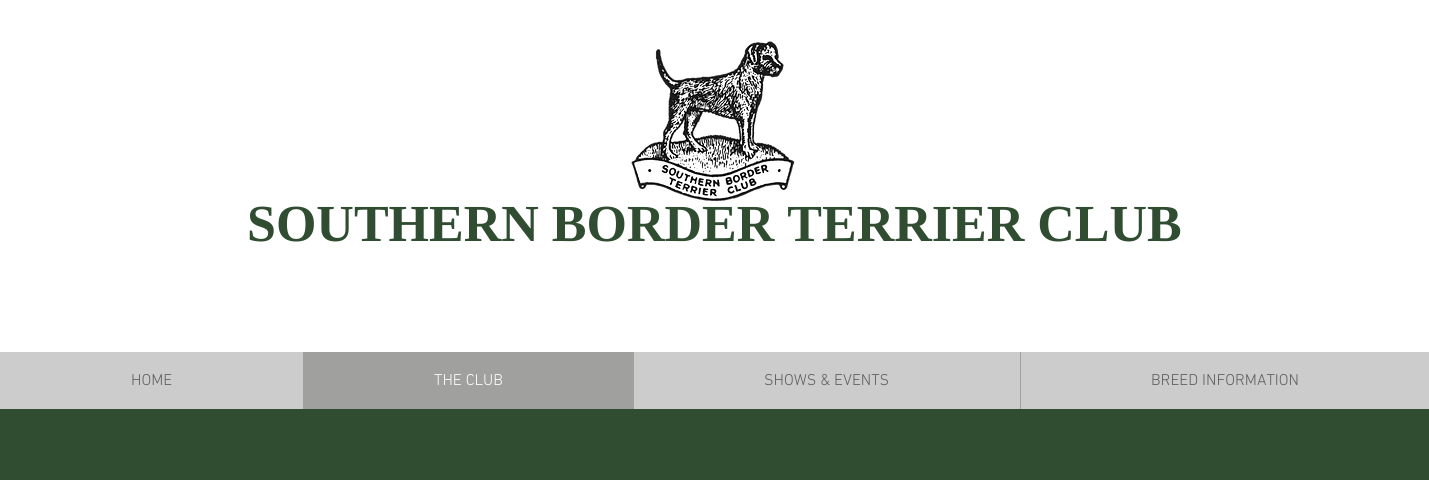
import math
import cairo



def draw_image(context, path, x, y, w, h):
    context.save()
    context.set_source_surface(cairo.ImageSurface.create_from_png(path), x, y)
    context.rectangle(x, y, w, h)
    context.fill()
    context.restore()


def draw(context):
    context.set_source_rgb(1, 1, 1)
    context.paint()
    draw_image(context, "images/1.png", 631, 41, 164, 161)
    context.set_source_rgb(204 / 255, 204 / 255, 204 / 255)
    context.rectangle(0, 352, 1429, 57)
    context.fill()
    context.set_source_rgb(160 / 255, 160 / 255, 159 / 255)
    context.rectangle(303, 352, 330, 57)
    context.fill()
    context.rectangle(633, 352, 1, 58)
    context.fill()
    context.rectangle(1020, 352, 1, 58)
    context.fill()
    context.set_source_rgb(48 / 255, 77 / 255, 49 / 255)
    context.rectangle(0, 409, 1429, 71)
    context.fill()
    context.select_font_face("Liberation Serif", cairo.FontSlant.NORMAL, cairo.FontWeight.BOLD)
    context.set_font_size(52)
    context.move_to(247, 241)
    context.show_text("SOUTHERN BORDER TERRIER CLUB")
    context.select_font_face("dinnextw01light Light")
    context.set_font_size(16)
    context.set_source_rgb(96 / 255, 94 / 255, 94 / 255)
    context.move_to(131, 385)
    context.show_text("HOME")
    context.set_source_rgb(1, 1, 1)
    context.move_to(434, 385)
    context.show_text("THE CLUB")
    context.set_source_rgb(96 / 255, 94 / 255, 94 / 255)
    context.move_to(764, 385)
    context.show_text("SHOWS & EVENTS")
    context.move_to(1151, 385)
    context.show_text("BREED INFORMATION")


surface = cairo.ImageSurface(cairo.Format.RGB24, 1429, 480)
context = cairo.Context(surface)
options = cairo.FontOptions()
options.set_hint_metrics(cairo.HintMetrics.OFF)
options.set_hint_style(cairo.HintStyle.NONE)
context.set_font_options(options)
context.set_miter_limit(4)
draw(context)
surface.write_to_png("out.png")
